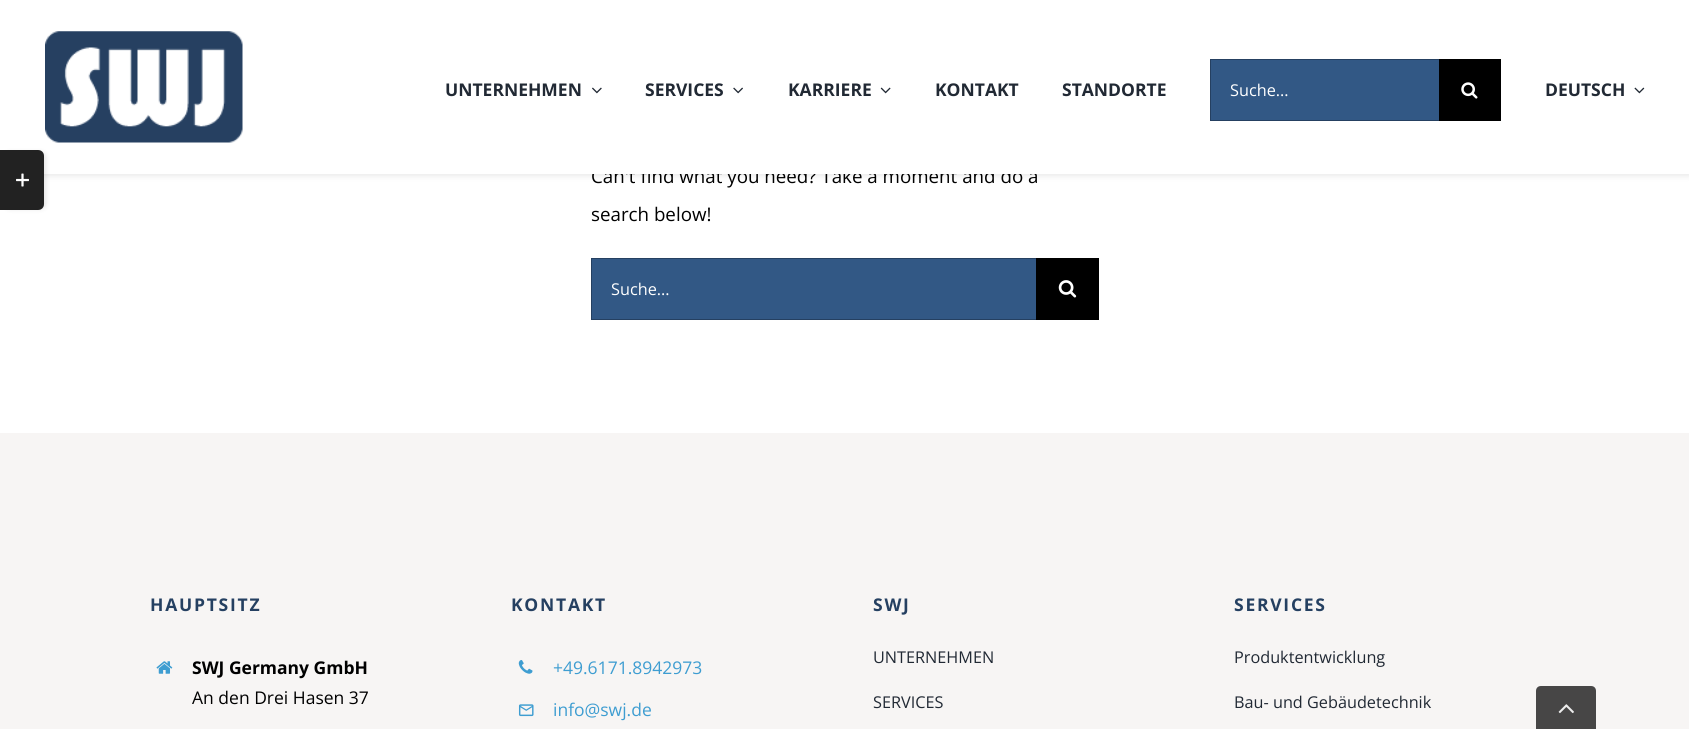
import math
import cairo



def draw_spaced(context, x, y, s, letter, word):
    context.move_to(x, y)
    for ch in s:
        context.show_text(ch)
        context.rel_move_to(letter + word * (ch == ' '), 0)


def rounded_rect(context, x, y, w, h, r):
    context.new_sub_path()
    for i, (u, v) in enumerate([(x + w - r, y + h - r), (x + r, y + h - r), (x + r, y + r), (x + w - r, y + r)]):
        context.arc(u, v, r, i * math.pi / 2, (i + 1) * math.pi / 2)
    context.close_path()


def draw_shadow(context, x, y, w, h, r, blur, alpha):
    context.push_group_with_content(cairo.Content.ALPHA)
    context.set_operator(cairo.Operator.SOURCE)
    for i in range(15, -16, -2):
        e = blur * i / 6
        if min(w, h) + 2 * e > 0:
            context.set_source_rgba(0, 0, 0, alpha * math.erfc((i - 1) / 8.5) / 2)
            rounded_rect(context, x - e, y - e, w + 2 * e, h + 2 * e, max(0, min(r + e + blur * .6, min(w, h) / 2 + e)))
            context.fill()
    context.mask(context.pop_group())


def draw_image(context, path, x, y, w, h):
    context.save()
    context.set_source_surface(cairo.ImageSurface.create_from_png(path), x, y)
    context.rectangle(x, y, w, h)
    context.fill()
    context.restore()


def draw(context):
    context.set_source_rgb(1, 1, 1)
    context.paint()
    context.set_source_rgb(33 / 255, 33 / 255, 33 / 255)
    draw_shadow(context, 0, 3, 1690, 173, 0, 3, 0.1)
    context.set_source_rgb(50 / 255, 88 / 255, 133 / 255)
    context.rectangle(592, 259, 444, 60)
    context.fill()
    context.set_source_rgb(37 / 255, 64 / 255, 97 / 255)
    context.rectangle(591, 258, 445, 1)
    context.fill()
    context.rectangle(591, 319, 445, 1)
    context.fill()
    context.rectangle(591, 258, 1, 62)
    context.fill()
    context.set_source_rgb(0, 0, 0)
    context.rectangle(1036, 258, 63, 62)
    context.fill()
    draw_image(context, "images/8.png", 1058, 280, 19, 18)
    context.set_source_rgb(247 / 255, 245 / 255, 244 / 255)
    context.rectangle(0, 433, 1689, 296)
    context.fill()
    draw_image(context, "images/9.png", 156, 661, 17, 13)
    draw_image(context, "images/10.png", 518, 660, 15, 14)
    draw_image(context, "images/11.png", 518, 704, 16, 13)
    context.set_source_rgb(71 / 255, 70 / 255, 70 / 255)
    context.new_path()
    context.move_to(1541, 686)
    context.line_to(1591, 686)
    context.curve_to(1594, 686, 1596, 688, 1596, 691)
    context.line_to(1596, 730)
    context.line_to(1536, 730)
    context.line_to(1536, 691)
    context.curve_to(1536, 688, 1538, 686, 1541, 686)
    context.close_path()
    context.fill()
    draw_image(context, "images/12.png", 1558, 704, 16, 10)
    context.select_font_face("Open Sans")
    context.set_font_size(18.75)
    context.set_source_rgb(0, 0, 0)
    context.move_to(591, 183)
    context.show_text("Can't find what you need? Take a moment and do a")
    context.set_source_rgb(1, 1, 1)
    context.rectangle(0, 0, 1689, 174)
    context.fill()
    context.set_source_rgb(0, 0, 0)
    draw_shadow(context, 6, 153, 39, 55, 4, 3, 0.14)
    context.set_source_rgb(34 / 255, 34 / 255, 34 / 255)
    context.new_path()
    context.move_to(0, 150)
    context.line_to(38, 150)
    context.curve_to(41.5, 150, 44, 152.5, 44, 156)
    context.line_to(44, 204)
    context.curve_to(44, 207.5, 41.5, 210, 38, 210)
    context.line_to(0, 210)
    context.close_path()
    context.fill()
    draw_image(context, "images/7.png", 16, 173, 13, 14)
    draw_image(context, "images/6.png", 1634, 87, 11, 7)
    context.select_font_face("Open Sans", cairo.FontSlant.NORMAL, cairo.FontWeight.BOLD)
    context.set_font_size(17.5)
    context.set_source_rgb(33 / 255, 41 / 255, 52 / 255)
    context.move_to(1545, 96)
    context.show_text("DEUTSCH")
    context.set_source_rgb(0, 0, 0)
    context.rectangle(1439, 59, 62, 62)
    context.fill()
    draw_image(context, "images/5.png", 1461, 82, 17, 17)
    context.set_source_rgb(50 / 255, 88 / 255, 133 / 255)
    context.rectangle(1211, 60, 228, 60)
    context.fill()
    context.select_font_face("Open Sans")
    context.set_font_size(16.25)
    context.set_source_rgb(1, 1, 1)
    context.move_to(1230, 96)
    context.show_text("Suche...")
    context.set_source_rgb(37 / 255, 64 / 255, 97 / 255)
    context.rectangle(1210, 120, 229, 1)
    context.fill()
    context.rectangle(1210, 59, 229, 1)
    context.fill()
    context.rectangle(1210, 59, 1, 62)
    context.fill()
    context.select_font_face("Open Sans", cairo.FontSlant.NORMAL, cairo.FontWeight.BOLD)
    context.set_font_size(17.5)
    context.set_source_rgb(33 / 255, 41 / 255, 52 / 255)
    context.move_to(1062, 96)
    context.show_text("STANDORTE")
    context.move_to(935, 96)
    context.show_text("KONTAKT")
    draw_image(context, "images/4.png", 880, 87, 11, 7)
    context.move_to(788, 96)
    context.show_text("KARRIERE")
    draw_image(context, "images/3.png", 733, 87, 10, 7)
    context.move_to(645, 96)
    context.show_text("SERVICES")
    draw_image(context, "images/2.png", 592, 87, 10, 7)
    context.move_to(445, 96)
    context.show_text("UNTERNEHMEN")
    draw_image(context, "images/1.png", 45, 31, 198, 112)
    context.select_font_face("Open Sans")
    context.set_font_size(18.75)
    context.set_source_rgb(0, 0, 0)
    context.move_to(591, 221)
    context.show_text("search below!")
    context.set_font_size(16.25)
    context.set_source_rgb(1, 1, 1)
    context.move_to(611, 295)
    context.show_text("Suche...")
    context.select_font_face("Open Sans", cairo.FontSlant.NORMAL, cairo.FontWeight.BOLD)
    context.set_font_size(17.5)
    context.set_source_rgb(37 / 255, 64 / 255, 97 / 255)
    draw_spaced(context, 150, 611, "HAUPTSITZ", 1.75, 0)
    context.set_source_rgb(0, 0, 0)
    context.move_to(192, 674)
    context.show_text("SWJ Germany GmbH")
    context.select_font_face("Open Sans")
    context.move_to(192, 704)
    context.show_text("An den Drei Hasen 37")
    context.select_font_face("Open Sans", cairo.FontSlant.NORMAL, cairo.FontWeight.BOLD)
    context.set_source_rgb(37 / 255, 64 / 255, 97 / 255)
    draw_spaced(context, 511, 611, "KONTAKT", 1.75, 0)
    context.select_font_face("Open Sans")
    context.set_source_rgb(62 / 255, 157 / 255, 209 / 255)
    context.move_to(553, 674)
    context.show_text("+49.6171.8942973")
    context.move_to(553, 716)
    context.show_text("info@swj.de")
    context.select_font_face("Open Sans", cairo.FontSlant.NORMAL, cairo.FontWeight.BOLD)
    context.set_source_rgb(37 / 255, 64 / 255, 97 / 255)
    draw_spaced(context, 873, 611, "SWJ", 1.75, 0)
    context.select_font_face("Open Sans")
    context.set_font_size(16.25)
    context.set_source_rgb(33 / 255, 41 / 255, 52 / 255)
    context.move_to(873, 663)
    context.show_text("UNTERNEHMEN")
    context.move_to(873, 708)
    context.show_text("SERVICES")
    context.select_font_face("Open Sans", cairo.FontSlant.NORMAL, cairo.FontWeight.BOLD)
    context.set_font_size(17.5)
    context.set_source_rgb(37 / 255, 64 / 255, 97 / 255)
    draw_spaced(context, 1234, 611, "SERVICES", 1.75, 0)
    context.select_font_face("Open Sans")
    context.set_font_size(16.25)
    context.set_source_rgb(33 / 255, 41 / 255, 52 / 255)
    context.move_to(1234, 663)
    context.show_text("Produktentwicklung")
    context.move_to(1234, 708)
    context.show_text("Bau- und Gebäudetechnik")


surface = cairo.ImageSurface(cairo.Format.RGB24, 1689, 729)
context = cairo.Context(surface)
options = cairo.FontOptions()
options.set_hint_metrics(cairo.HintMetrics.OFF)
options.set_hint_style(cairo.HintStyle.NONE)
context.set_font_options(options)
context.set_miter_limit(4)
draw(context)
surface.write_to_png("out.png")
